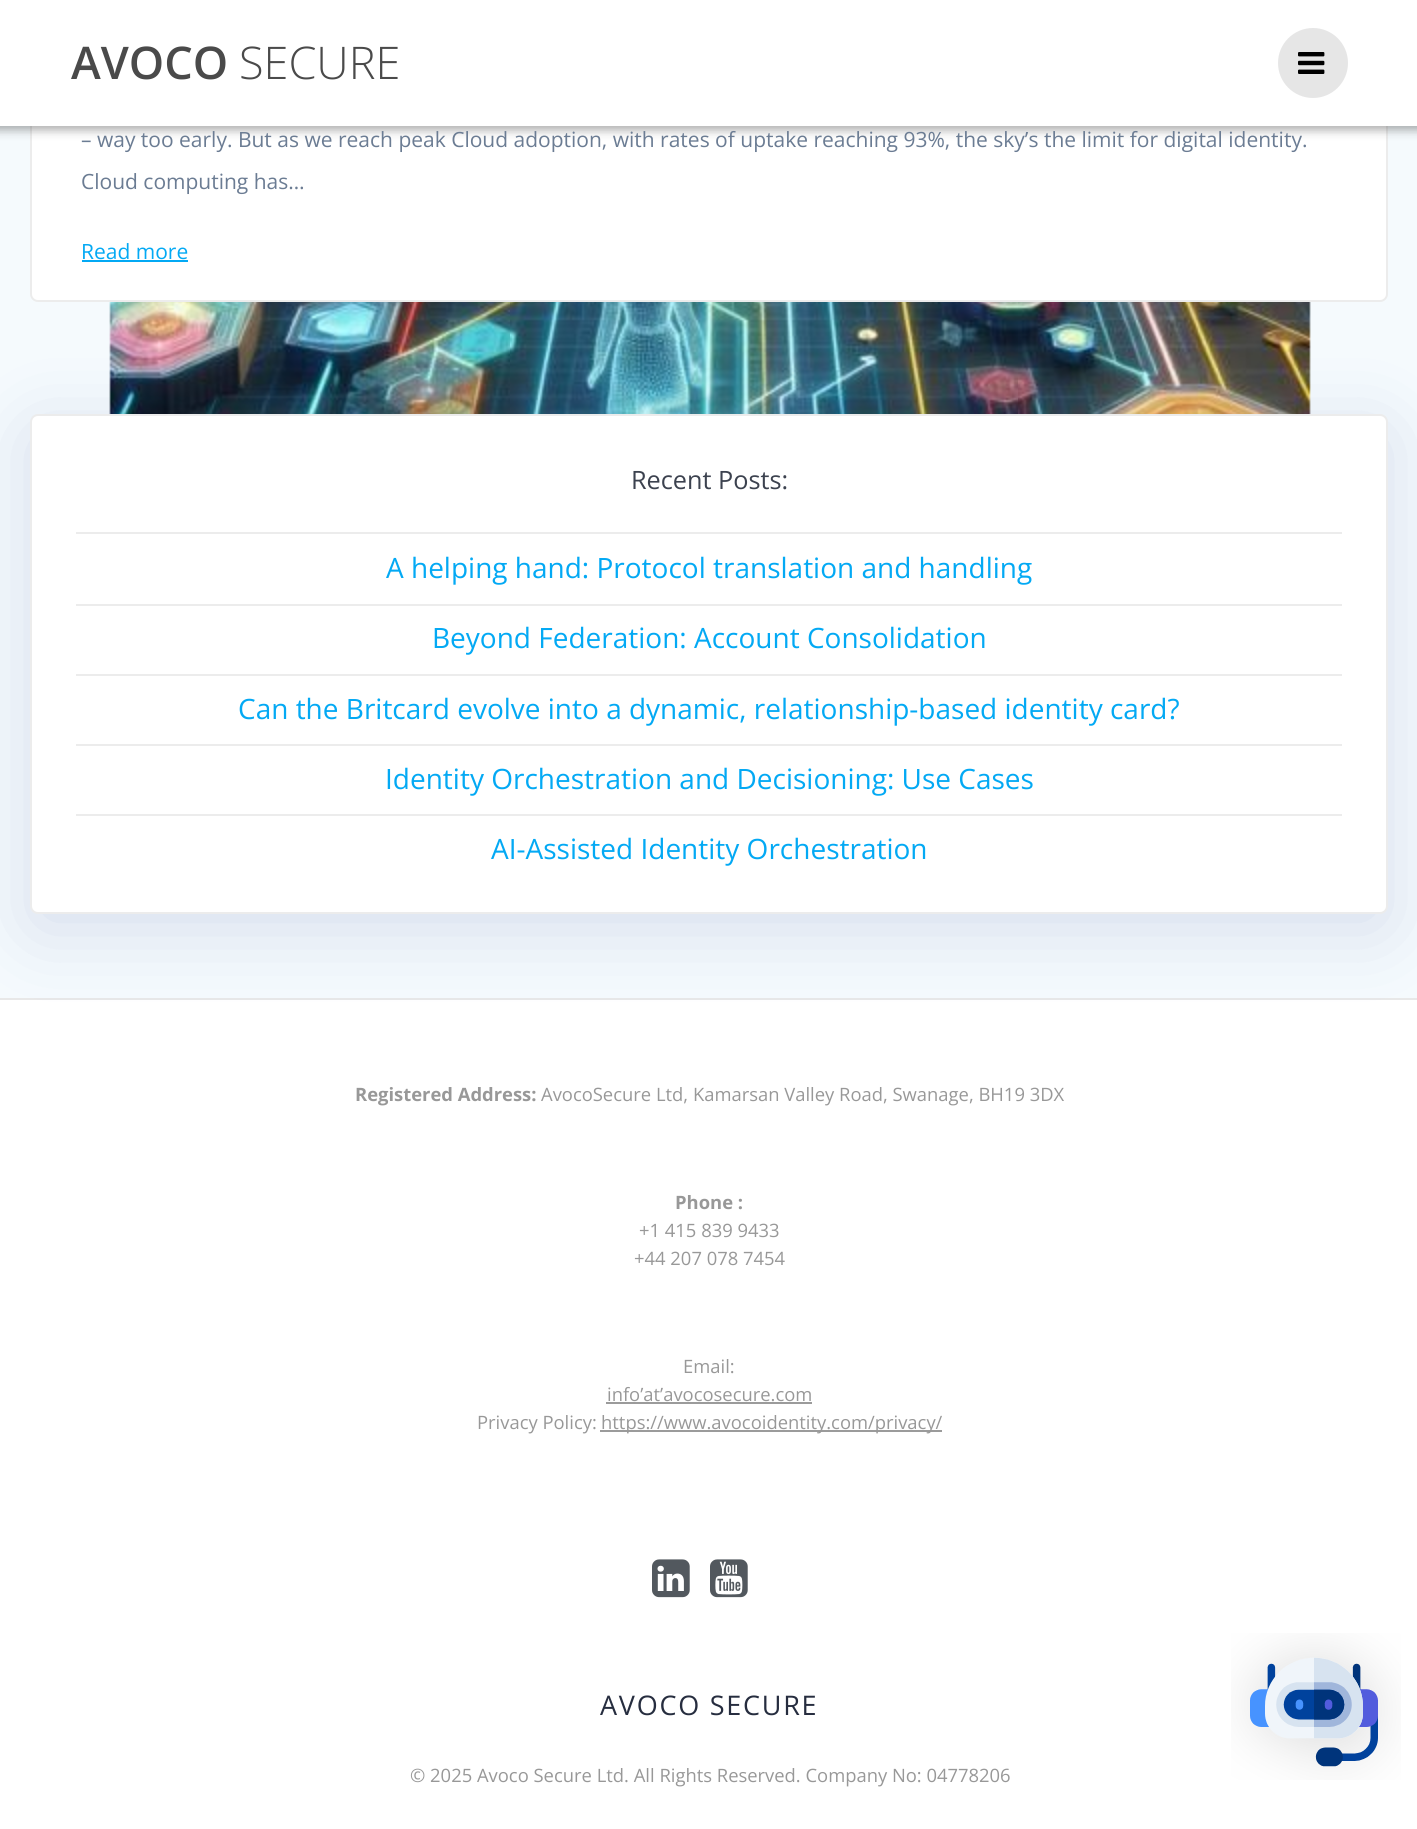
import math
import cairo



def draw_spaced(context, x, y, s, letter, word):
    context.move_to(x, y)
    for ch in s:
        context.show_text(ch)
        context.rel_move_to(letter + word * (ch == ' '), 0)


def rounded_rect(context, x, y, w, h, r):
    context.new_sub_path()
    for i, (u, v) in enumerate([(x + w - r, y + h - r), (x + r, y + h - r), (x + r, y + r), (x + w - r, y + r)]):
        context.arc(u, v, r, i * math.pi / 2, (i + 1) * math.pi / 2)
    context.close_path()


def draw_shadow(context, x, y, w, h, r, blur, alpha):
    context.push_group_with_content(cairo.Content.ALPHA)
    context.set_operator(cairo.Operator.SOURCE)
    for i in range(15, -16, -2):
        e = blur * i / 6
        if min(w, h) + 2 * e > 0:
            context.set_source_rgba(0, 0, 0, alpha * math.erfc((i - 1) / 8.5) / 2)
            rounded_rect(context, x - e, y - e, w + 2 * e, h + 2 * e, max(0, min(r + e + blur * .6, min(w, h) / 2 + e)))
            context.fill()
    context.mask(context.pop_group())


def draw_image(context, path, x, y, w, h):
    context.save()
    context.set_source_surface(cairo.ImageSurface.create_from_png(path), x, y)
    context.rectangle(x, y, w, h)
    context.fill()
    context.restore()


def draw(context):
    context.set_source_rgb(245 / 255, 250 / 255, 253 / 255)
    context.paint()
    draw_image(context, "images/1.png", 109, 302, 1202, 112)
    context.set_source_rgb(1, 1, 1)
    rounded_rect(context, 31, -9, 1356, 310, 7)
    context.fill_preserve()
    context.set_source_rgb(236 / 255, 236 / 255, 236 / 255)
    context.stroke()
    context.set_source_rgb(0, 0, 0)
    draw_shadow(context, -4, -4, 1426, 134, 0, 5, 0.33)
    context.set_source_rgb(1, 1, 1)
    context.rectangle(0, 0, 1417, 126)
    context.fill()
    context.set_source_rgb(230 / 255, 230 / 255, 230 / 255)
    context.arc(1313, 63, 35, 0, 2 * math.pi)
    context.fill()
    draw_image(context, "images/2.png", 1298, 52, 27, 22)
    context.set_source_rgb(3 / 255, 169 / 255, 244 / 255)
    context.rectangle(82, 260, 106, 2)
    context.fill()
    context.set_source_rgb(1, 1, 1)
    context.rectangle(0, 1000, 1417, 829)
    context.fill()
    context.set_source_rgb(232 / 255, 232 / 255, 232 / 255)
    context.rectangle(0, 998, 1417, 2)
    context.fill()
    context.set_source_rgb(35 / 255, 69 / 255, 152 / 255)
    draw_shadow(context, 30, 430, 1358, 500, 8, 39.5, 0.15)
    context.set_source_rgb(1, 1, 1)
    rounded_rect(context, 31, 415, 1356, 498, 7)
    context.fill_preserve()
    context.set_source_rgb(236 / 255, 236 / 255, 236 / 255)
    context.stroke()
    context.rectangle(76, 532, 1266, 2)
    context.fill()
    context.rectangle(76, 604, 1266, 2)
    context.fill()
    context.rectangle(76, 674, 1266, 2)
    context.fill()
    context.rectangle(76, 744, 1266, 2)
    context.fill()
    context.rectangle(76, 814, 1266, 2)
    context.fill()
    context.set_source_rgb(155 / 255, 155 / 255, 155 / 255)
    context.rectangle(606, 1402, 206, 2)
    context.fill()
    context.rectangle(600, 1430, 342, 2)
    context.fill()
    draw_image(context, "images/3.png", 652, 1559, 38, 39)
    draw_image(context, "images/4.png", 710, 1559, 38, 39)
    draw_image(context, "images/5.png", 1231, 1633, 170, 147)
    context.select_font_face("Open Sans SemiBold")
    context.set_font_size(45)
    context.set_source_rgb(74 / 255, 74 / 255, 74 / 255)
    context.move_to(71, 79)
    context.show_text("AVOCO")
    context.select_font_face("Open Sans Light")
    context.move_to(239, 79)
    context.show_text("SECURE")
    context.select_font_face("Open Sans")
    context.set_font_size(21)
    context.set_source_rgb(107 / 255, 124 / 255, 147 / 255)
    context.move_to(81, 147)
    context.show_text("– way too early. But as we reach peak Cloud adoption, with rates of uptake reaching 93%, the sky’s the limit for digital identity.")
    context.move_to(81, 189)
    context.show_text("Cloud computing has…")
    context.set_source_rgb(3 / 255, 169 / 255, 244 / 255)
    context.move_to(81, 259)
    context.show_text("Read more")
    context.set_font_size(25.25)
    context.set_source_rgb(60 / 255, 66 / 255, 79 / 255)
    context.move_to(631, 489)
    context.show_text("Recent Posts:")
    context.set_font_size(28)
    context.set_source_rgb(3 / 255, 169 / 255, 244 / 255)
    context.move_to(386, 578)
    context.show_text("A helping hand: Protocol translation and handling")
    context.move_to(432, 648)
    context.show_text("Beyond Federation: Account Consolidation")
    context.move_to(238, 719)
    context.show_text("Can the Britcard evolve into a dynamic, relationship-based identity card?")
    context.move_to(385, 789)
    context.show_text("Identity Orchestration and Decisioning: Use Cases")
    context.move_to(491, 859)
    context.show_text("AI-Assisted Identity Orchestration")
    context.select_font_face("Open Sans", cairo.FontSlant.NORMAL, cairo.FontWeight.BOLD)
    context.set_font_size(18.4)
    context.set_source_rgb(152 / 255, 152 / 255, 152 / 255)
    context.move_to(355, 1101)
    context.show_text("Registered Address:")
    context.select_font_face("Open Sans")
    context.move_to(541, 1101)
    context.show_text("AvocoSecure Ltd, Kamarsan Valley Road, Swanage, BH19 3DX")
    context.select_font_face("Open Sans", cairo.FontSlant.NORMAL, cairo.FontWeight.BOLD)
    context.move_to(675, 1209)
    context.show_text("Phone :")
    context.select_font_face("Open Sans")
    context.move_to(639, 1237)
    context.show_text("+1 415 839 9433")
    context.move_to(634, 1265)
    context.show_text("+44 207 078 7454")
    context.move_to(683, 1373)
    context.show_text("Email:")
    context.move_to(607, 1401)
    context.show_text("info’at’avocosecure.com")
    context.move_to(477, 1429)
    context.show_text("Privacy Policy:")
    context.move_to(601, 1429)
    context.show_text("https://www.avocoidentity.com/privacy/")
    context.set_font_size(27)
    context.set_source_rgb(38 / 255, 45 / 255, 63 / 255)
    draw_spaced(context, 600, 1715, "AVOCO SECURE", 1.75, 0)
    context.set_font_size(18.4)
    context.set_source_rgb(152 / 255, 152 / 255, 152 / 255)
    context.move_to(410, 1782)
    context.show_text("© 2025 Avoco Secure Ltd. All Rights Reserved. Company No: 04778206")


surface = cairo.ImageSurface(cairo.Format.RGB24, 1417, 1829)
context = cairo.Context(surface)
options = cairo.FontOptions()
options.set_hint_metrics(cairo.HintMetrics.OFF)
options.set_hint_style(cairo.HintStyle.NONE)
context.set_font_options(options)
context.set_miter_limit(4)
draw(context)
surface.write_to_png("out.png")
